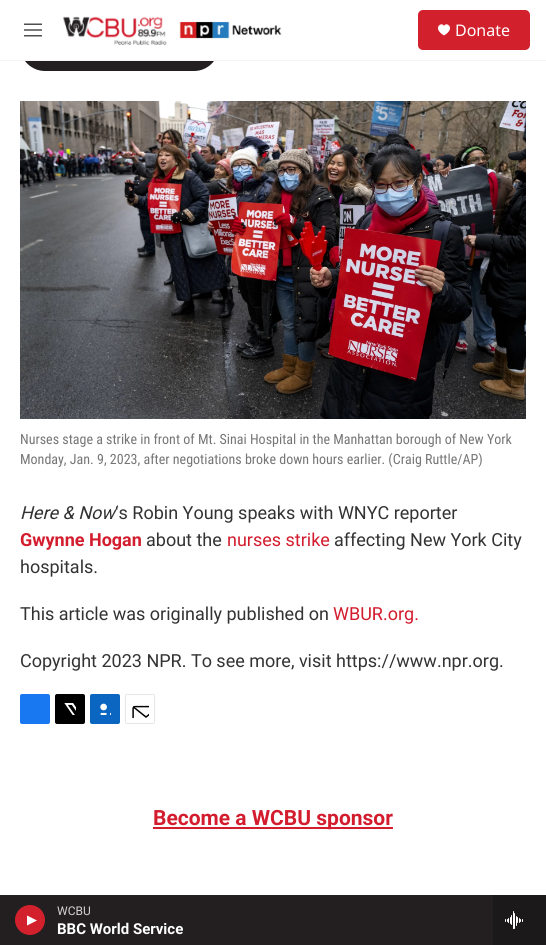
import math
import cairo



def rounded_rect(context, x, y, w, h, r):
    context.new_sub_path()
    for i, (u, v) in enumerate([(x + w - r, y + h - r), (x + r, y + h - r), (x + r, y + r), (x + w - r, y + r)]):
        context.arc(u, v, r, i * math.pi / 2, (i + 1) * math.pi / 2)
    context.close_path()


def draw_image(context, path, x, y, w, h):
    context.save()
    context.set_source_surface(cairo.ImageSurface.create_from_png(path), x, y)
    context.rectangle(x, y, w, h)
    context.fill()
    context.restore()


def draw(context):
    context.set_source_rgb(1, 1, 1)
    context.paint()
    context.set_source_rgb(35 / 255, 31 / 255, 32 / 255)
    rounded_rect(context, 20, 21, 199, 50, 25)
    context.fill()
    context.set_source_rgb(1, 1, 1)
    context.rectangle(20, 21, 199, 39)
    context.fill()
    context.set_source_rgb(245 / 255, 245 / 255, 245 / 255)
    context.rectangle(0, 60, 546, 1)
    context.fill()
    draw_image(context, "images/1.png", 24, 23, 18, 14)
    draw_image(context, "images/2.png", 63, 16, 219, 29)
    context.set_source_rgb(210 / 255, 32 / 255, 44 / 255)
    rounded_rect(context, 418, 10, 112, 40, 5)
    context.fill()
    context.set_source_rgb(1, 1, 1)
    context.new_path()
    context.move_to(444, 26)
    context.curve_to(442, 21, 431.5, 28, 444, 35.5)
    context.curve_to(456.5, 28, 446, 21, 444, 26)
    context.close_path()
    context.fill()
    context.set_source_rgb(35 / 255, 31 / 255, 32 / 255)
    context.rectangle(0, 895, 493, 50)
    context.fill()
    context.set_source_rgb(210 / 255, 32 / 255, 45 / 255)
    context.arc(30, 920, 15, 0, 2 * math.pi)
    context.fill()
    context.set_source_rgb(1, 1, 1)
    context.new_path()
    context.move_to(27, 915.5)
    context.line_to(37, 920.5)
    context.line_to(27, 925.5)
    context.close_path()
    context.fill()
    context.set_source_rgb(28 / 255, 25 / 255, 26 / 255)
    context.rectangle(493, 895, 53, 50)
    context.fill()
    draw_image(context, "images/3.png", 505, 911, 18, 18)
    draw_image(context, "images/4.png", 20, 101, 506, 318)
    context.set_source_rgb(23 / 255, 120 / 255, 242 / 255)
    rounded_rect(context, 20, 694, 30, 30, 2)
    context.fill()
    context.set_source_rgb(0, 0, 0)
    rounded_rect(context, 55, 694, 30, 30, 2)
    context.fill()
    draw_image(context, "images/5.png", 64, 703, 12, 12)
    context.set_source_rgb(10 / 255, 102 / 255, 193 / 255)
    rounded_rect(context, 90, 694, 30, 30, 2)
    context.fill()
    draw_image(context, "images/6.png", 100, 703, 11, 12)
    rounded_rect(context, 125.5, 694.5, 29, 29, 1.5)
    context.set_source_rgb(230 / 255, 230 / 255, 230 / 255)
    context.set_line_width(1)
    context.stroke()
    draw_image(context, "images/7.png", 132, 705, 17, 13)
    context.set_source_rgb(211 / 255, 29 / 255, 46 / 255)
    context.rectangle(153, 827, 240, 2)
    context.fill()
    context.select_font_face("Noto Sans")
    context.set_font_size(16)
    context.set_source_rgb(1, 1, 1)
    context.move_to(455, 36)
    context.show_text("Donate")
    context.select_font_face("Roboto")
    context.set_font_size(12)
    context.set_source_rgb(211 / 255, 210 / 255, 210 / 255)
    context.move_to(57, 915)
    context.show_text("WCBU")
    context.select_font_face("Roboto", cairo.FontSlant.NORMAL, cairo.FontWeight.BOLD)
    context.set_font_size(15)
    context.set_source_rgb(1, 1, 1)
    context.move_to(57, 934)
    context.show_text("BBC World Service")
    context.select_font_face("Roboto Condensed")
    context.set_font_size(14)
    context.set_source_rgb(118 / 255, 118 / 255, 118 / 255)
    context.move_to(20, 444)
    context.show_text("Nurses stage a strike in front of Mt. Sinai Hospital in the Manhattan borough of New York")
    context.move_to(20, 464)
    context.show_text("Monday, Jan. 9, 2023, after negotiations broke down hours earlier. (Craig Ruttle/AP)")
    context.select_font_face("Roboto", cairo.FontSlant.ITALIC)
    context.set_font_size(18)
    context.set_source_rgb(51 / 255, 51 / 255, 51 / 255)
    context.move_to(20, 519)
    context.show_text("Here & Now")
    context.select_font_face("Roboto")
    context.move_to(115, 519)
    context.show_text("‘s Robin Young speaks with WNYC reporter")
    context.select_font_face("Roboto", cairo.FontSlant.NORMAL, cairo.FontWeight.BOLD)
    context.set_source_rgb(211 / 255, 29 / 255, 46 / 255)
    context.move_to(20, 546)
    context.show_text("Gwynne Hogan")
    context.select_font_face("Roboto")
    context.set_source_rgb(51 / 255, 51 / 255, 51 / 255)
    context.move_to(146, 546)
    context.show_text("about the")
    context.set_source_rgb(211 / 255, 29 / 255, 46 / 255)
    context.move_to(227, 546)
    context.show_text("nurses strike")
    context.set_source_rgb(51 / 255, 51 / 255, 51 / 255)
    context.move_to(334, 546)
    context.show_text("affecting New York City")
    context.move_to(20, 573)
    context.show_text("hospitals.")
    context.move_to(20, 620)
    context.show_text("This article was originally published on")
    context.set_source_rgb(211 / 255, 29 / 255, 46 / 255)
    context.move_to(333, 620)
    context.show_text("WBUR.org.")
    context.set_source_rgb(51 / 255, 51 / 255, 51 / 255)
    context.move_to(20, 667)
    context.show_text("Copyright 2023 NPR. To see more, visit https://www.npr.org.")
    context.select_font_face("Roboto", cairo.FontSlant.NORMAL, cairo.FontWeight.BOLD)
    context.set_font_size(21)
    context.set_source_rgb(211 / 255, 29 / 255, 46 / 255)
    context.move_to(153, 825)
    context.show_text("Become a WCBU sponsor")


surface = cairo.ImageSurface(cairo.Format.RGB24, 546, 945)
context = cairo.Context(surface)
options = cairo.FontOptions()
options.set_hint_metrics(cairo.HintMetrics.OFF)
options.set_hint_style(cairo.HintStyle.NONE)
context.set_font_options(options)
context.set_miter_limit(4)
draw(context)
surface.write_to_png("out.png")
